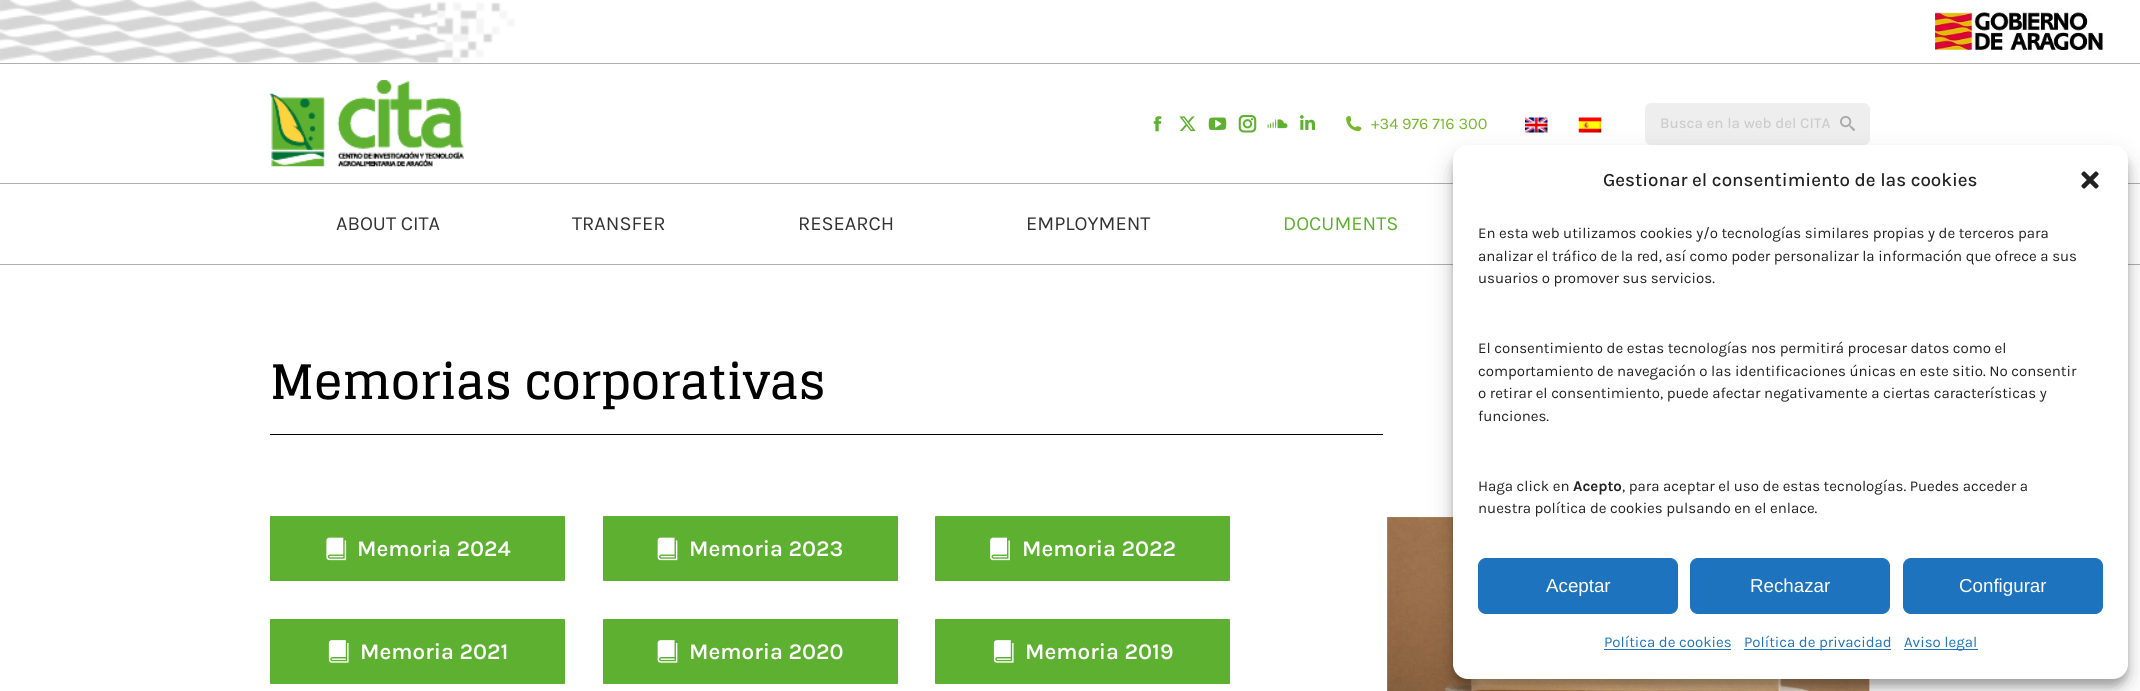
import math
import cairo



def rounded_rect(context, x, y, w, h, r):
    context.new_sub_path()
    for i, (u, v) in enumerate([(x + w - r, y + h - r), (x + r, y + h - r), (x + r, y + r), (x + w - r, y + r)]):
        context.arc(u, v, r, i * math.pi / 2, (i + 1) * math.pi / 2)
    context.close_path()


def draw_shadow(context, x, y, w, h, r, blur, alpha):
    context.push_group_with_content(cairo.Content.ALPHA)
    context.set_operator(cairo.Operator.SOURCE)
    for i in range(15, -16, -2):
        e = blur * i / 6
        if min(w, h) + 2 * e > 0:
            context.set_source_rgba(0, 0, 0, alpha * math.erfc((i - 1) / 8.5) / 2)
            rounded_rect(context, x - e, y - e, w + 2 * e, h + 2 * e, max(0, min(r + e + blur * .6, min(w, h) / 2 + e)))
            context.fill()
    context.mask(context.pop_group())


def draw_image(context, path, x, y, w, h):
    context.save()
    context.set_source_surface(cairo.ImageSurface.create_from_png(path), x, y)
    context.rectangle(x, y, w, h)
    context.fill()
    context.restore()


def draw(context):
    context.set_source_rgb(1, 1, 1)
    context.paint()
    context.set_source_rgb(175 / 255, 175 / 255, 175 / 255)
    context.rectangle(0, 264, 2140, 1)
    context.fill()
    draw_image(context, "images/1.png", 0, 0, 515, 63)
    draw_image(context, "images/2.png", 1935, 12, 168, 38)
    context.rectangle(0, 63, 2140, 1)
    context.fill()
    draw_image(context, "images/3.png", 270, 80, 194, 87)
    draw_image(context, "images/4.png", 1153, 116, 9, 16)
    draw_image(context, "images/5.png", 1179, 116, 17, 16)
    draw_image(context, "images/6.png", 1208, 117, 19, 13)
    draw_image(context, "images/7.png", 1238, 115, 19, 18)
    draw_image(context, "images/8.png", 1267, 119, 21, 10)
    draw_image(context, "images/9.png", 1300, 115, 15, 15)
    draw_image(context, "images/10.png", 1346, 116, 16, 16)
    draw_image(context, "images/11.png", 1525, 117, 23, 16)
    draw_image(context, "images/12.png", 1578, 117, 24, 16)
    context.set_source_rgb(238 / 255, 238 / 255, 238 / 255)
    rounded_rect(context, 1645, 103, 225, 42, 6)
    context.fill()
    draw_image(context, "images/13.png", 1840, 116, 15, 15)
    context.set_source_rgb(175 / 255, 175 / 255, 175 / 255)
    context.rectangle(0, 183, 2140, 1)
    context.fill()
    context.set_source_rgb(0, 0, 0)
    context.rectangle(270, 434, 1113, 1)
    context.fill()
    context.set_source_rgb(94 / 255, 177 / 255, 48 / 255)
    rounded_rect(context, 270, 516, 295, 65, 1)
    context.fill()
    draw_image(context, "images/14.png", 326, 537, 21, 24)
    rounded_rect(context, 603, 516, 295, 65, 1)
    context.fill()
    draw_image(context, "images/15.png", 657, 537, 21, 24)
    rounded_rect(context, 935, 516, 295, 65, 1)
    context.fill()
    draw_image(context, "images/16.png", 990, 537, 20, 24)
    rounded_rect(context, 270, 619, 295, 65, 1)
    context.fill()
    draw_image(context, "images/17.png", 328, 640, 21, 23)
    rounded_rect(context, 603, 619, 295, 65, 1)
    context.fill()
    draw_image(context, "images/18.png", 657, 640, 21, 23)
    rounded_rect(context, 935, 619, 295, 65, 1)
    context.fill()
    draw_image(context, "images/17.png", 993, 640, 21, 23)
    draw_image(context, "images/19.png", 1387, 517, 483, 174)
    context.set_source_rgb(0, 0, 0)
    draw_shadow(context, 1453, 153, 675, 533, 15, 4, 0.23)
    draw_shadow(context, 1453, 158, 675, 533, 15, 12.5, 0.19)
    context.set_source_rgb(1, 1, 1)
    rounded_rect(context, 1453, 145, 675, 534, 15)
    context.fill()
    draw_image(context, "images/20.png", 2081, 171, 18, 18)
    context.set_source_rgb(30 / 255, 115 / 255, 190 / 255)
    rounded_rect(context, 1478.5, 558.5, 199, 55, 7.5)
    context.fill_preserve()
    context.set_line_width(1)
    context.stroke()
    rounded_rect(context, 1690.5, 558.5, 199, 55, 7.5)
    context.fill_preserve()
    context.stroke()
    rounded_rect(context, 1903.5, 558.5, 199, 55, 7.5)
    context.fill_preserve()
    context.stroke()
    context.rectangle(1604, 649, 127, 1)
    context.fill()
    context.rectangle(1744, 649, 147, 1)
    context.fill()
    context.rectangle(1904, 649, 74, 1)
    context.fill()
    context.select_font_face("Karla")
    context.set_font_size(16.25)
    context.set_source_rgb(118 / 255, 184 / 255, 42 / 255)
    context.move_to(1371, 129)
    context.show_text("+34 976 716 300")
    context.select_font_face("Karla Medium")
    context.set_font_size(15)
    context.set_source_rgb(204 / 255, 204 / 255, 204 / 255)
    context.move_to(1660, 128)
    context.show_text("Busca en la web del CITA")
    context.select_font_face("Karla")
    context.set_font_size(20)
    context.set_source_rgb(51 / 255, 51 / 255, 51 / 255)
    context.move_to(336, 230)
    context.show_text("ABOUT CITA")
    context.move_to(572, 230)
    context.show_text("TRANSFER")
    context.move_to(798, 230)
    context.show_text("RESEARCH")
    context.move_to(1026, 230)
    context.show_text("EMPLOYMENT")
    context.set_source_rgb(94 / 255, 177 / 255, 48 / 255)
    context.move_to(1283, 230)
    context.show_text("DOCUMENTS")
    context.select_font_face("Glegoo", cairo.FontSlant.NORMAL, cairo.FontWeight.BOLD)
    context.set_font_size(47.5)
    context.set_source_rgb(0, 0, 0)
    context.move_to(270, 399)
    context.show_text("Memorias corporativas")
    context.select_font_face("Karla SemiBold")
    context.set_font_size(22.5)
    context.set_source_rgb(1, 1, 1)
    context.move_to(357, 556)
    context.show_text("Memoria 2024")
    context.move_to(689, 556)
    context.show_text("Memoria 2023")
    context.move_to(1022, 556)
    context.show_text("Memoria 2022")
    context.move_to(360, 659)
    context.show_text("Memoria 2021")
    context.move_to(689, 659)
    context.show_text("Memoria 2020")
    context.move_to(1025, 659)
    context.show_text("Memoria 2019")
    context.select_font_face("Karla Medium")
    context.set_font_size(18.75)
    context.set_source_rgb(34 / 255, 34 / 255, 34 / 255)
    context.move_to(1603, 186)
    context.show_text("Gestionar el consentimiento de las cookies")
    context.select_font_face("Karla")
    context.set_font_size(15)
    context.move_to(1478, 238)
    context.show_text("En esta web utilizamos cookies y/o tecnologías similares propias y de terceros para")
    context.move_to(1478, 261)
    context.show_text("analizar el tráfico de la red, así como poder personalizar la información que ofrece a sus")
    context.move_to(1478, 283)
    context.show_text("usuarios o promover sus servicios.")
    context.move_to(1478, 353)
    context.show_text("El consentimiento de estas tecnologías nos permitirá procesar datos como el")
    context.move_to(1478, 376)
    context.show_text("comportamiento de navegación o las identificaciones únicas en este sitio. No consentir")
    context.move_to(1478, 398)
    context.show_text("o retirar el consentimiento, puede afectar negativamente a ciertas características y")
    context.move_to(1478, 421)
    context.show_text("funciones.")
    context.move_to(1478, 491)
    context.show_text("Haga click en")
    context.select_font_face("Karla", cairo.FontSlant.NORMAL, cairo.FontWeight.BOLD)
    context.move_to(1573, 491)
    context.show_text("Acepto")
    context.select_font_face("Karla")
    context.move_to(1622, 491)
    context.show_text(", para aceptar el uso de estas tecnologías. Puedes acceder a")
    context.move_to(1478, 513)
    context.show_text("nuestra política de cookies pulsando en el enlace.")
    context.select_font_face("Liberation Sans")
    context.set_font_size(18.75)
    context.set_source_rgb(1, 1, 1)
    context.move_to(1546, 592)
    context.show_text("Aceptar")
    context.move_to(1750, 592)
    context.show_text("Rechazar")
    context.move_to(1959, 592)
    context.show_text("Configurar")
    context.select_font_face("Karla")
    context.set_font_size(15)
    context.set_source_rgb(30 / 255, 115 / 255, 190 / 255)
    context.move_to(1604, 647)
    context.show_text("Política de cookies")
    context.move_to(1744, 647)
    context.show_text("Política de privacidad")
    context.move_to(1904, 647)
    context.show_text("Aviso legal")


surface = cairo.ImageSurface(cairo.Format.RGB24, 2140, 691)
context = cairo.Context(surface)
options = cairo.FontOptions()
options.set_hint_metrics(cairo.HintMetrics.OFF)
options.set_hint_style(cairo.HintStyle.NONE)
context.set_font_options(options)
context.set_miter_limit(4)
draw(context)
surface.write_to_png("out.png")
